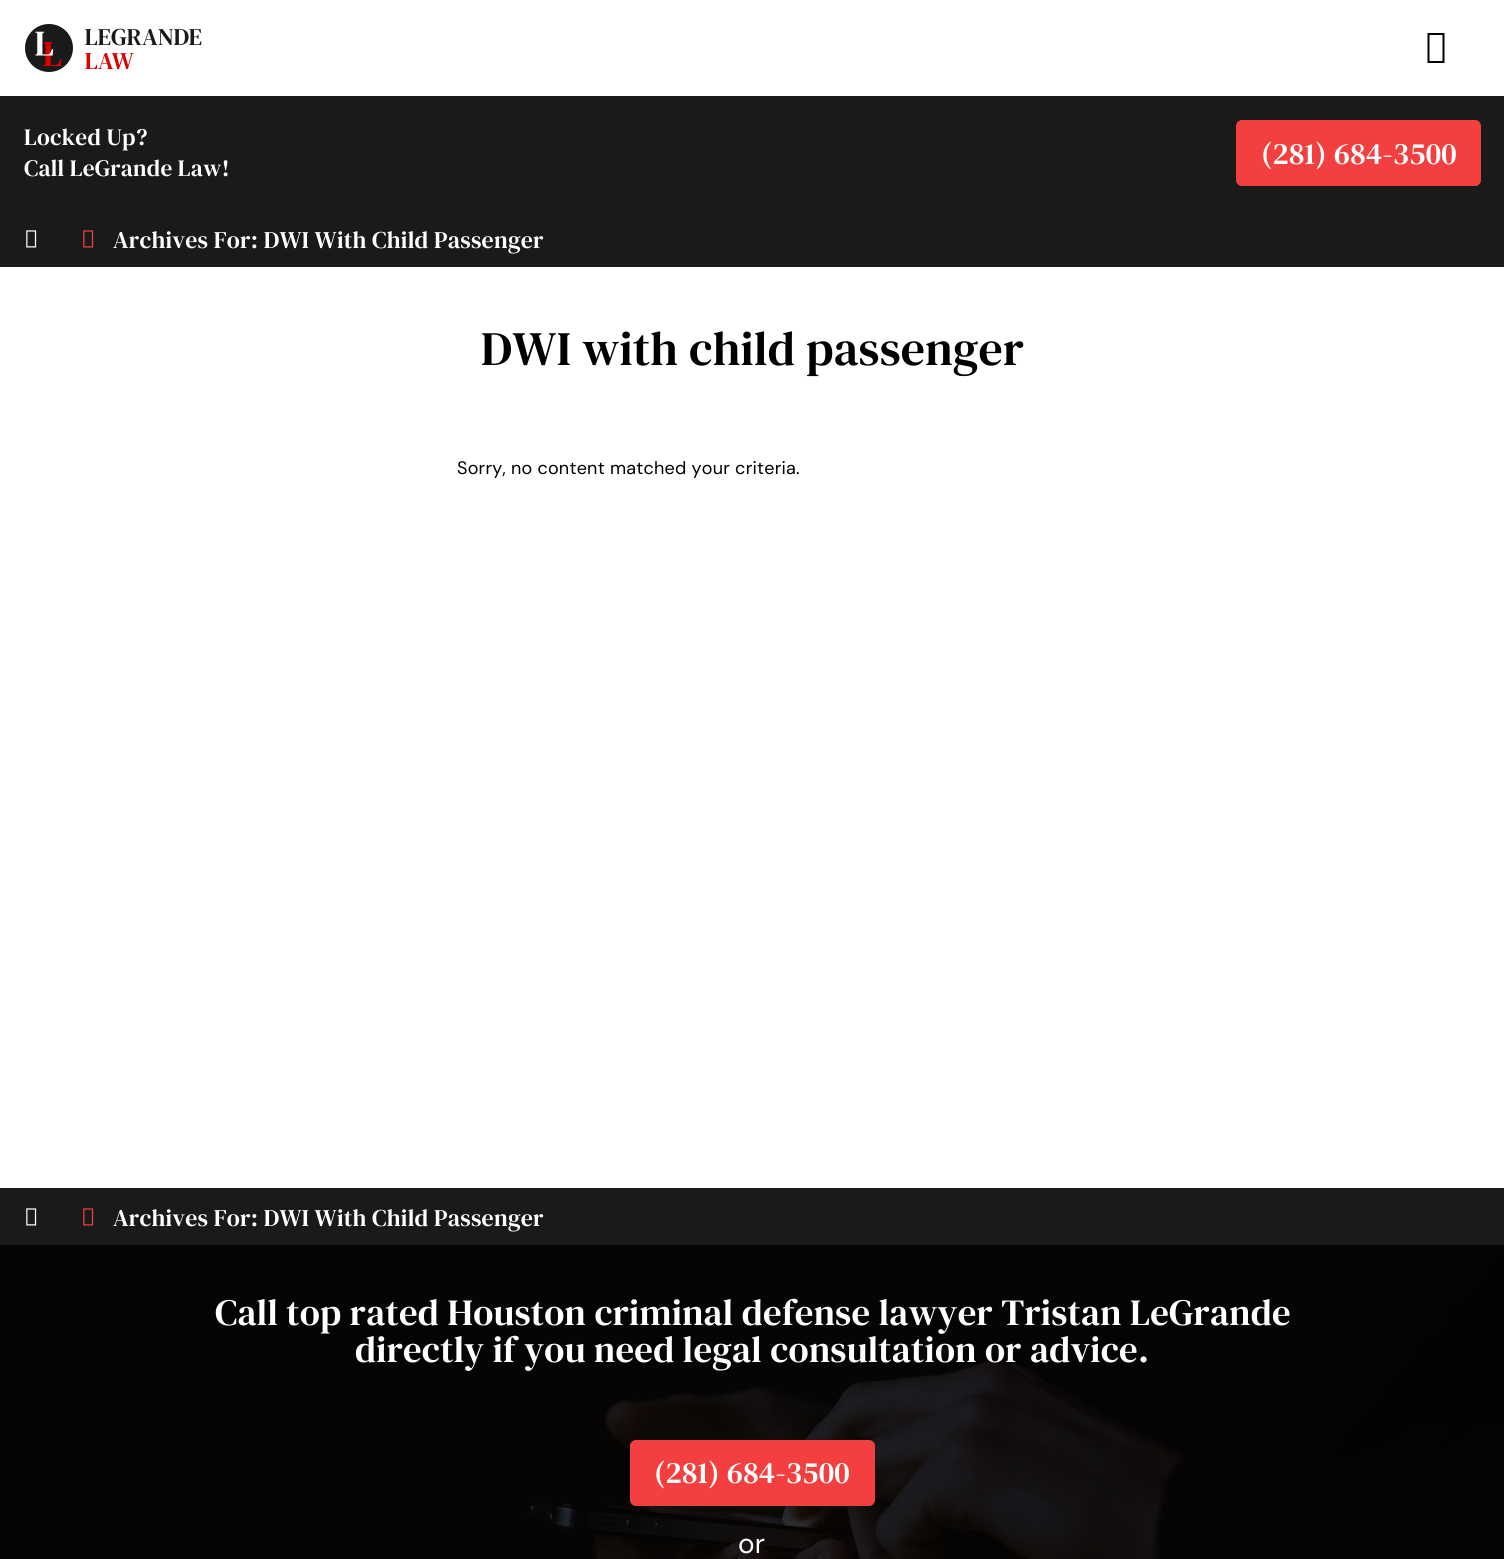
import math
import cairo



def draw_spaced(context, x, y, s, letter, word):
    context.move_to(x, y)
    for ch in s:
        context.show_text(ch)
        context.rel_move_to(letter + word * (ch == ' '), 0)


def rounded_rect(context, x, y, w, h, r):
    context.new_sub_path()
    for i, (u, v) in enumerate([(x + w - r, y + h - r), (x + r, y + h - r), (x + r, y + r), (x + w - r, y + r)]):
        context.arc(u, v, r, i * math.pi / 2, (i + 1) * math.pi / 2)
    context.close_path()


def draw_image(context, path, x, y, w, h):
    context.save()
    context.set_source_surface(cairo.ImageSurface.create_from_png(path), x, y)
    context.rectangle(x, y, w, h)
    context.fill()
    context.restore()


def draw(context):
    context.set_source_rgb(1, 1, 1)
    context.paint()
    draw_image(context, "images/1.png", 25, 24, 177, 48)
    context.set_source_rgb(0, 0, 0)
    context.new_path()
    context.move_to(1427.5, 63)
    context.line_to(1427.5, 33)
    context.line_to(1444.5, 33)
    context.line_to(1444.5, 63)
    context.close_path()
    context.move_to(1429.5, 61)
    context.line_to(1442.5, 61)
    context.line_to(1442.5, 35)
    context.line_to(1429.5, 35)
    context.close_path()
    context.fill()
    context.set_source_rgb(26 / 255, 26 / 255, 26 / 255)
    context.rectangle(0, 96, 1504, 171)
    context.fill()
    context.set_source_rgb(243 / 255, 63 / 255, 63 / 255)
    rounded_rect(context, 1236, 120, 245, 66, 6)
    context.fill()
    draw_image(context, "images/2.png", 26, 230, 11, 18)
    draw_image(context, "images/3.png", 83, 230, 11, 18)
    context.set_source_rgb(26 / 255, 26 / 255, 26 / 255)
    context.rectangle(0, 1188, 1504, 57)
    context.fill()
    draw_image(context, "images/2.png", 26, 1208, 11, 18)
    draw_image(context, "images/3.png", 83, 1208, 11, 18)
    draw_image(context, "images/4.png", 0, 1245, 1504, 314)
    context.set_source_rgb(243 / 255, 63 / 255, 63 / 255)
    rounded_rect(context, 630, 1440, 245, 66, 6)
    context.fill()
    context.select_font_face("DM Serif Text")
    context.set_font_size(23.5)
    context.set_source_rgb(1, 1, 1)
    draw_spaced(context, 24, 145, "Locked Up?", 0.23, 0)
    draw_spaced(context, 24, 176, "Call LeGrande Law!", 0.23, 0)
    context.set_font_size(30.75)
    draw_spaced(context, 1261, 164, "(281) 684-3500", 0.23, 0)
    context.set_font_size(24)
    draw_spaced(context, 113, 248, "Archives For: DWI With Child Passenger", 0.23, 0)
    context.set_font_size(48)
    context.set_source_rgb(0, 0, 0)
    draw_spaced(context, 481, 365, "DWI with child passenger", 0.23, 0)
    context.select_font_face("DM Sans")
    context.set_font_size(18)
    draw_spaced(context, 457, 474, "Sorry, no content matched your criteria.", 0.23, 0)
    context.select_font_face("DM Serif Text")
    context.set_font_size(24)
    context.set_source_rgb(1, 1, 1)
    draw_spaced(context, 113, 1226, "Archives For: DWI With Child Passenger", 0.23, 0)
    context.set_font_size(37)
    draw_spaced(context, 215, 1325, "Call top rated Houston criminal defense lawyer Tristan LeGrande", 0.23, 0)
    draw_spaced(context, 355, 1362, "directly if you need legal consultation or advice.", 0.23, 0)
    context.set_font_size(30.75)
    draw_spaced(context, 654, 1483, "(281) 684-3500", 0.23, 0)
    context.select_font_face("DM Sans")
    context.set_font_size(28)
    draw_spaced(context, 738, 1553, "or", 0.23, 0)


surface = cairo.ImageSurface(cairo.Format.RGB24, 1504, 1559)
context = cairo.Context(surface)
options = cairo.FontOptions()
options.set_hint_metrics(cairo.HintMetrics.OFF)
options.set_hint_style(cairo.HintStyle.NONE)
context.set_font_options(options)
context.set_miter_limit(4)
draw(context)
surface.write_to_png("out.png")
